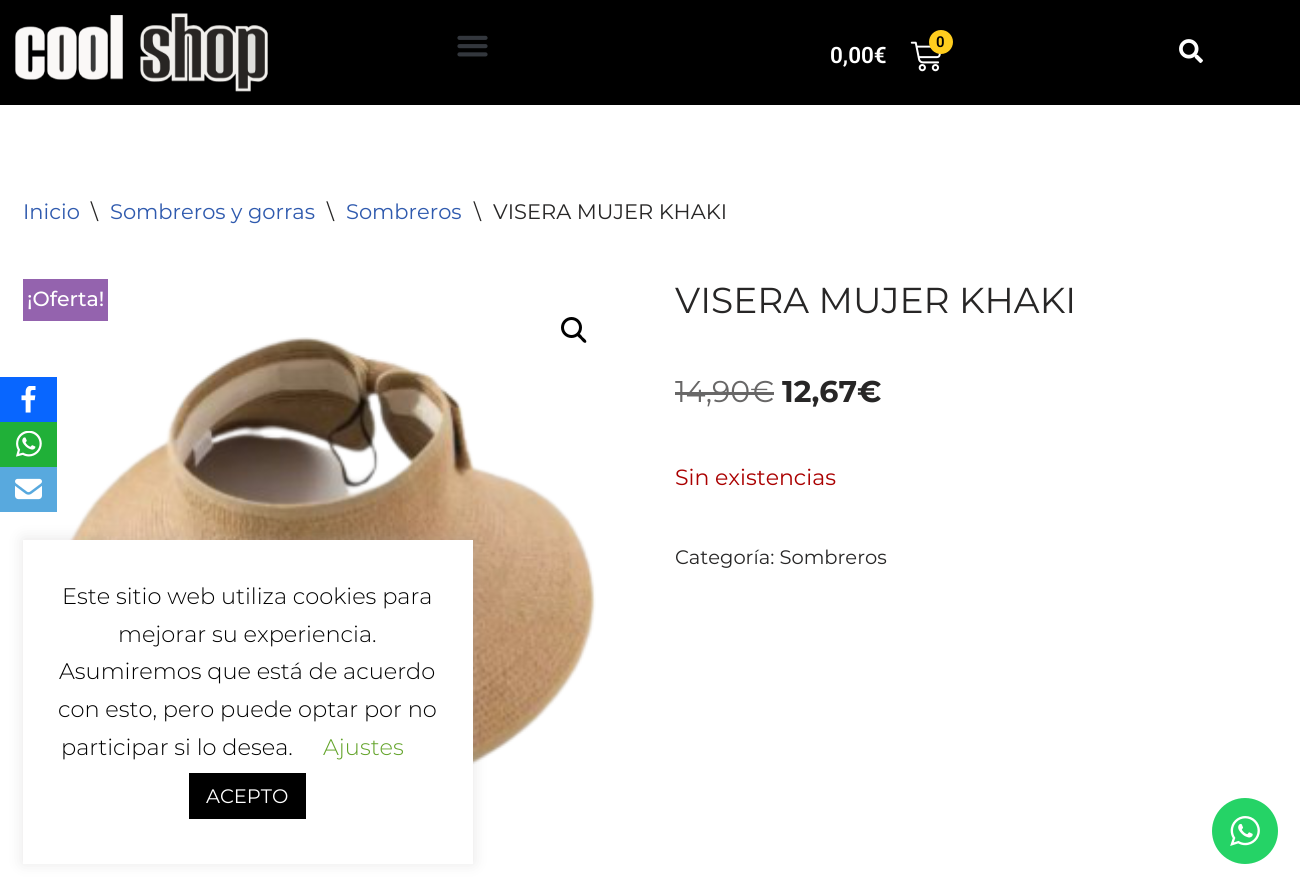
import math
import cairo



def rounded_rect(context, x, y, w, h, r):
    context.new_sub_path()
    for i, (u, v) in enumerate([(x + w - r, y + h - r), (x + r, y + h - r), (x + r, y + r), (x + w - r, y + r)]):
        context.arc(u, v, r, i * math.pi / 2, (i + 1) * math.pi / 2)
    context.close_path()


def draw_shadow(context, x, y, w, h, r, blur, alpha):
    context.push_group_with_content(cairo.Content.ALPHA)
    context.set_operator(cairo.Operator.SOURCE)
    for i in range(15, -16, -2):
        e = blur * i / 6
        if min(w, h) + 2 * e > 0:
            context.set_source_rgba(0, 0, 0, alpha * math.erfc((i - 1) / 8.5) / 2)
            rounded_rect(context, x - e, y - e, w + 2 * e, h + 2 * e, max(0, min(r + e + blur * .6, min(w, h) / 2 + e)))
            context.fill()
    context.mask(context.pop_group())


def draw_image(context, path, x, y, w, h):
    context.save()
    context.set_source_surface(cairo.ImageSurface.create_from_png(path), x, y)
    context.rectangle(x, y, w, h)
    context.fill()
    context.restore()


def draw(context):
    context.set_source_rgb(1, 1, 1)
    context.paint()
    context.set_source_rgb(0, 0, 0)
    context.rectangle(0, 0, 1300, 105)
    context.fill()
    draw_image(context, "images/1.png", 15, 13, 253, 79)
    draw_image(context, "images/2.png", 457, 35, 31, 22)
    draw_image(context, "images/3.png", 910, 41, 31, 31)
    context.set_source_rgb(1, 205 / 255, 30 / 255)
    context.arc(941, 42, 12, 0, 2 * math.pi)
    context.fill()
    draw_image(context, "images/4.png", 1179, 39, 24, 24)
    context.set_source_rgb(148 / 255, 99 / 255, 174 / 255)
    context.rectangle(23, 279, 85, 42)
    context.fill()
    draw_image(context, "images/5.png", 68, 337, 528, 428)
    context.arc(571.5, 327.5, 9, 0, 2 * math.pi)
    context.set_source_rgb(0, 0, 0)
    context.set_line_width(3)
    context.stroke()
    context.new_path()
    context.move_to(577.5, 334)
    context.curve_to(579, 332, 582, 336, 582.5, 337)
    context.curve_to(583.5, 338, 587.5, 340.5, 586, 342.5)
    context.curve_to(584, 344, 581.5, 340, 580.5, 339)
    context.curve_to(579.5, 338, 575.5, 335.5, 577.5, 334)
    context.close_path()
    context.fill()
    context.set_source_rgb(104 / 255, 103 / 255, 103 / 255)
    context.rectangle(675, 392, 99, 3)
    context.fill()
    context.set_source_rgb(8 / 255, 102 / 255, 1)
    context.rectangle(0, 377, 57, 45)
    context.fill()
    draw_image(context, "images/6.png", 21, 386, 15, 27)
    context.set_source_rgb(32 / 255, 176 / 255, 56 / 255)
    context.rectangle(0, 422, 57, 45)
    context.fill()
    draw_image(context, "images/7.png", 16, 431, 26, 26)
    context.set_source_rgb(88 / 255, 169 / 255, 222 / 255)
    context.rectangle(0, 467, 57, 45)
    context.fill()
    draw_image(context, "images/8.png", 15, 478, 27, 22)
    context.set_source_rgb(172 / 255, 171 / 255, 171 / 255)
    draw_shadow(context, 23, 539, 450, 324, 0, 7.5, 0.3)
    context.set_source_rgb(1, 1, 1)
    context.rectangle(23, 540, 450, 324)
    context.fill()
    context.set_source_rgb(0, 0, 0)
    context.rectangle(189, 773, 117, 46)
    context.fill()
    context.set_source_rgb(37 / 255, 211 / 255, 102 / 255)
    context.arc(1245, 831, 33, 0, 2 * math.pi)
    context.fill()
    draw_image(context, "images/9.png", 1230, 816, 30, 30)
    context.select_font_face("Roboto SemiBold")
    context.set_font_size(15)
    context.set_source_rgb(0, 0, 0)
    context.move_to(936, 47)
    context.show_text("0")
    context.set_font_size(22.5)
    context.set_source_rgb(1, 1, 1)
    context.move_to(830, 63)
    context.show_text("0,00€")
    context.select_font_face("Montserrat")
    context.set_font_size(21)
    context.set_source_rgb(47 / 255, 90 / 255, 174 / 255)
    context.move_to(23, 219)
    context.show_text("Inicio")
    context.set_source_rgb(39 / 255, 38 / 255, 38 / 255)
    context.move_to(91, 219)
    context.show_text("\\")
    context.set_source_rgb(47 / 255, 90 / 255, 174 / 255)
    context.move_to(110, 219)
    context.show_text("Sombreros y gorras")
    context.set_source_rgb(39 / 255, 38 / 255, 38 / 255)
    context.move_to(327, 219)
    context.show_text("\\")
    context.set_source_rgb(47 / 255, 90 / 255, 174 / 255)
    context.move_to(346, 219)
    context.show_text("Sombreros")
    context.set_source_rgb(39 / 255, 38 / 255, 38 / 255)
    context.move_to(474, 219)
    context.show_text("\\")
    context.move_to(493, 219)
    context.show_text("VISERA MUJER KHAKI")
    context.select_font_face("Montserrat Medium")
    context.set_font_size(20.5)
    context.set_source_rgb(1, 1, 1)
    context.move_to(27, 306)
    context.show_text("¡Oferta!")
    context.select_font_face("Montserrat")
    context.set_font_size(36)
    context.set_source_rgb(39 / 255, 38 / 255, 38 / 255)
    context.move_to(675, 313)
    context.show_text("VISERA MUJER KHAKI")
    context.set_font_size(30)
    context.set_source_rgb(104 / 255, 103 / 255, 103 / 255)
    context.move_to(675, 402)
    context.show_text("14,90€")
    context.select_font_face("Montserrat", cairo.FontSlant.NORMAL, cairo.FontWeight.BOLD)
    context.set_source_rgb(39 / 255, 38 / 255, 38 / 255)
    context.move_to(782, 402)
    context.show_text("12,67€")
    context.select_font_face("Montserrat")
    context.set_font_size(22)
    context.set_source_rgb(170 / 255, 0, 0)
    context.move_to(675, 485)
    context.show_text("Sin existencias")
    context.set_font_size(19.5)
    context.set_source_rgb(39 / 255, 38 / 255, 38 / 255)
    context.move_to(675, 564)
    context.show_text("Categoría: Sombreros")
    context.select_font_face("Montserrat Light")
    context.set_font_size(22.5)
    context.set_source_rgb(0, 0, 0)
    context.move_to(62, 604)
    context.show_text("Este sitio web utiliza cookies para")
    context.move_to(118, 642)
    context.show_text("mejorar su experiencia.")
    context.move_to(59, 679)
    context.show_text("Asumiremos que está de acuerdo")
    context.move_to(58, 717)
    context.show_text("con esto, pero puede optar por no")
    context.move_to(61, 755)
    context.show_text("participar si lo desea.")
    context.set_source_rgb(98 / 255, 163 / 255, 41 / 255)
    context.move_to(323, 755)
    context.show_text("Ajustes")
    context.select_font_face("Montserrat")
    context.set_font_size(19.5)
    context.set_source_rgb(1, 1, 1)
    context.move_to(206, 803)
    context.show_text("ACEPTO")


surface = cairo.ImageSurface(cairo.Format.RGB24, 1300, 886)
context = cairo.Context(surface)
options = cairo.FontOptions()
options.set_hint_metrics(cairo.HintMetrics.OFF)
options.set_hint_style(cairo.HintStyle.NONE)
context.set_font_options(options)
context.set_miter_limit(4)
draw(context)
surface.write_to_png("out.png")
